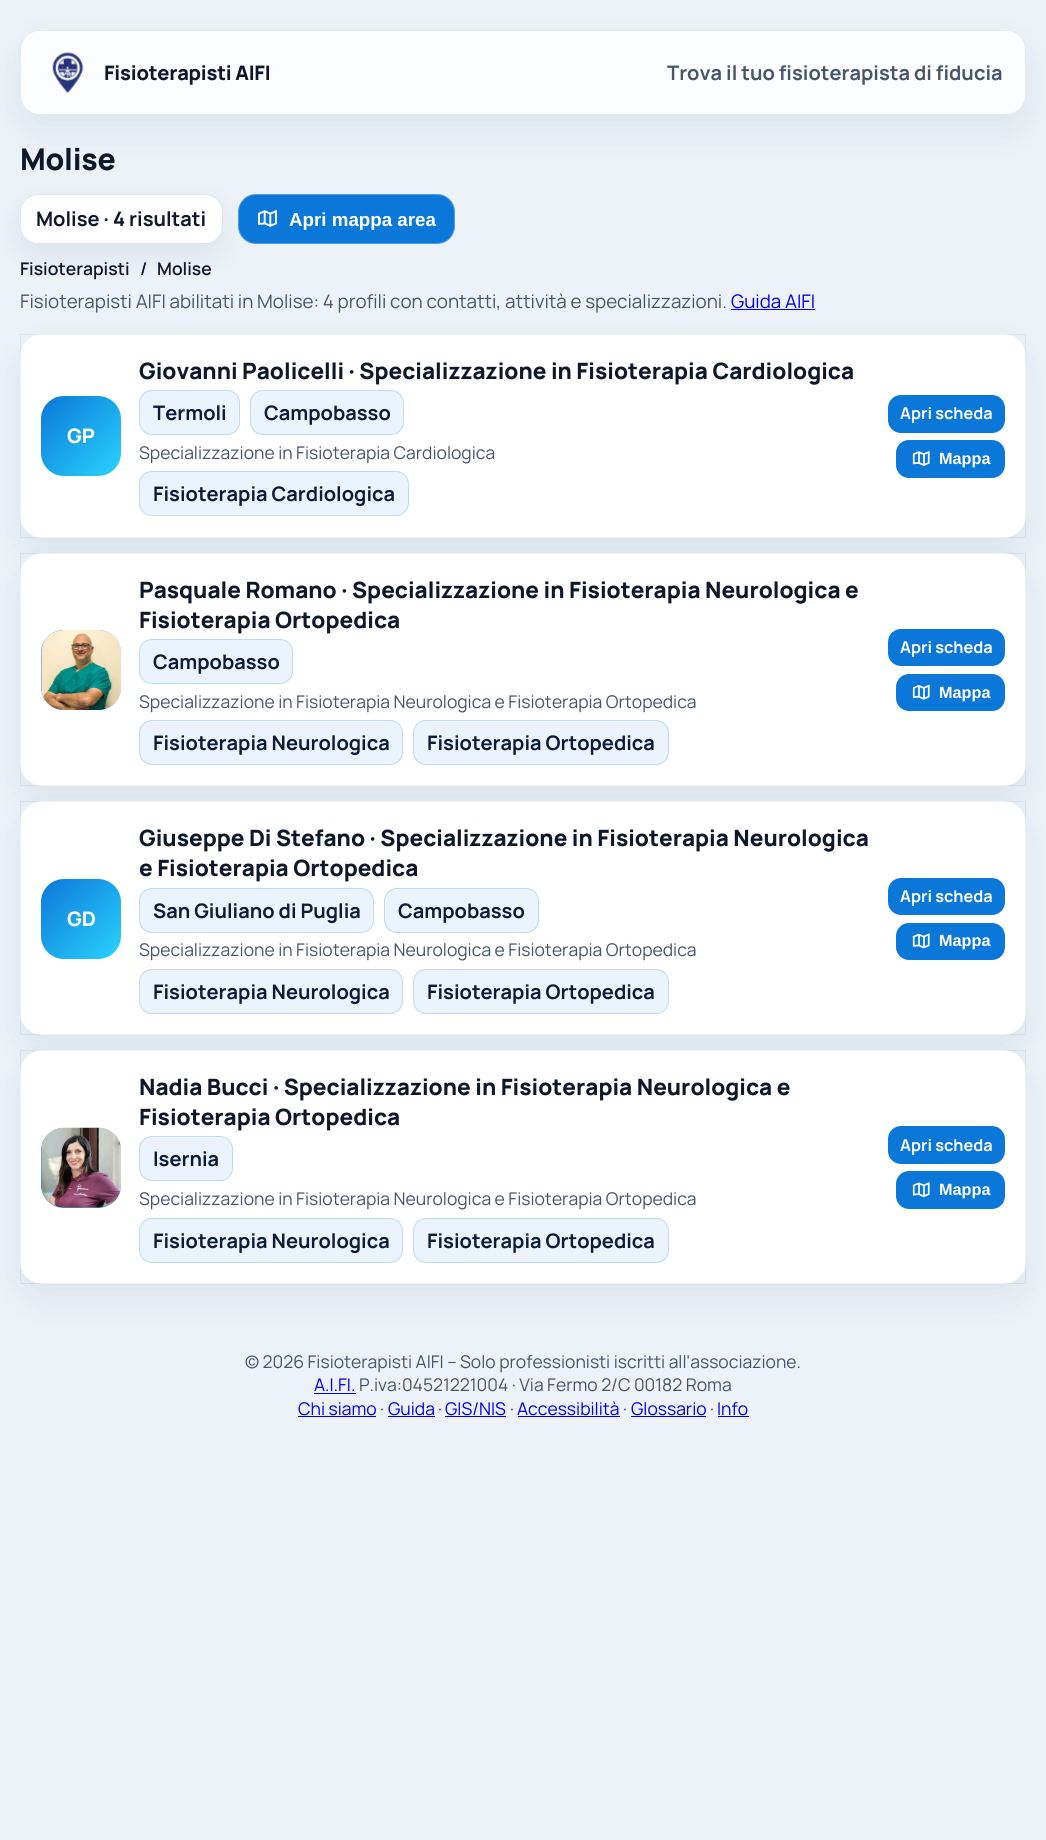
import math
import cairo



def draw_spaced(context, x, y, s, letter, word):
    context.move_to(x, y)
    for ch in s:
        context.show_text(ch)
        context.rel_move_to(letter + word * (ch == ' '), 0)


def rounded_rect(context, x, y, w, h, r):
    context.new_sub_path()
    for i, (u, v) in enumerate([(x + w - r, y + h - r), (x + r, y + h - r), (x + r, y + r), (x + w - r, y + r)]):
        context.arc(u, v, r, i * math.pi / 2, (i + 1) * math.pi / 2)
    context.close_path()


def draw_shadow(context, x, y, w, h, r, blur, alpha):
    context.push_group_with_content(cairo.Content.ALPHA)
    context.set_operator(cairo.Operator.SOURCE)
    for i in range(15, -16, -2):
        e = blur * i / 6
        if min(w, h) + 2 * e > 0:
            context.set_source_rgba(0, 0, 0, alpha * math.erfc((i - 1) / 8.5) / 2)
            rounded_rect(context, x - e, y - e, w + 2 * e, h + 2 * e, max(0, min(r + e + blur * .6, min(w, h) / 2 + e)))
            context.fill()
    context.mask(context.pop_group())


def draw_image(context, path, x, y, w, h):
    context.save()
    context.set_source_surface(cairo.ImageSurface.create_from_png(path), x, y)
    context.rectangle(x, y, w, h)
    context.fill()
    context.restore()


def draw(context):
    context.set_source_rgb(237 / 255, 242 / 255, 248 / 255)
    context.paint()
    context.save()
    context.set_fill_rule(cairo.FillRule.EVEN_ODD)
    context.new_path()
    context.move_to(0, 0)
    context.line_to(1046, 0)
    context.line_to(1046, 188)
    context.line_to(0, 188)
    context.close_path()
    context.move_to(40, 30)
    context.line_to(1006, 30)
    context.curve_to(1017, 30, 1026, 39, 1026, 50)
    context.line_to(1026, 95)
    context.curve_to(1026, 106, 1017, 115, 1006, 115)
    context.line_to(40, 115)
    context.curve_to(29, 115, 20, 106, 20, 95)
    context.line_to(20, 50)
    context.curve_to(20, 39, 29, 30, 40, 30)
    context.close_path()
    context.clip()
    context.set_source_rgb(12 / 255, 44 / 255, 99 / 255)
    draw_shadow(context, 20, 45, 1006, 85, 20, 19, 0.08)
    context.restore()
    context.set_source_rgba(1, 1, 1, 0.85)
    rounded_rect(context, 20, 30, 1006, 85, 20)
    context.fill()
    rounded_rect(context, 20.5, 30.5, 1005, 84, 19.5)
    context.set_source_rgba(15 / 255, 23 / 255, 42 / 255, 0.08)
    context.set_line_width(1)
    context.stroke()
    draw_image(context, "images/1.png", 52, 51, 32, 42)
    context.set_source_rgb(12 / 255, 44 / 255, 99 / 255)
    draw_shadow(context, 20, 206, 203, 50, 18, 15, 0.08)
    context.set_source_rgb(1, 1, 1)
    rounded_rect(context, 20, 194, 203, 50, 18)
    context.fill()
    rounded_rect(context, 20.5, 194.5, 202, 49, 17.5)
    context.set_source_rgba(12 / 255, 44 / 255, 99 / 255, 0.12)
    context.stroke()
    context.set_source_rgb(11 / 255, 119 / 255, 216 / 255)
    rounded_rect(context, 238, 194, 217, 50, 18)
    context.fill()
    rounded_rect(context, 238.5, 194.5, 216, 49, 17.5)
    context.set_source_rgba(1, 1, 1, 0.3)
    context.stroke()
    draw_image(context, "images/2.png", 258, 209, 19, 18)
    context.set_source_rgb(0, 0, 238 / 255)
    context.rectangle(731, 309, 84, 1)
    context.fill()
    context.set_source_rgb(12 / 255, 44 / 255, 99 / 255)
    draw_shadow(context, 20, 349, 1006, 204, 23, 19, 0.08)
    context.set_source_rgb(1, 1, 1)
    rounded_rect(context, 20, 334, 1006, 204, 23)
    context.fill()
    context.rectangle(20.5, 334.5, 1005, 203)
    context.set_source_rgba(12 / 255, 44 / 255, 99 / 255, 0.06)
    context.stroke()
    gradient = cairo.LinearGradient(41, 396, 121, 476)
    gradient.add_color_stop_rgba(0, 11 / 255, 119 / 255, 216 / 255, 1)
    gradient.add_color_stop_rgba(1, 42 / 255, 211 / 255, 1, 1)
    context.set_source(gradient)
    rounded_rect(context, 41, 396, 80, 80, 23)
    context.fill()
    context.set_source_rgb(235 / 255, 244 / 255, 252 / 255)
    rounded_rect(context, 139, 390, 101, 45, 13)
    context.fill()
    rounded_rect(context, 139.5, 390.5, 100, 44, 12.5)
    context.set_source_rgba(11 / 255, 119 / 255, 216 / 255, 0.2)
    context.stroke()
    context.set_source_rgb(235 / 255, 244 / 255, 252 / 255)
    rounded_rect(context, 250, 390, 154, 45, 13)
    context.fill()
    rounded_rect(context, 250.5, 390.5, 153, 44, 12.5)
    context.set_source_rgba(11 / 255, 119 / 255, 216 / 255, 0.2)
    context.stroke()
    context.set_source_rgb(235 / 255, 244 / 255, 252 / 255)
    rounded_rect(context, 139, 471, 270, 45, 13)
    context.fill()
    rounded_rect(context, 139.5, 471.5, 269, 44, 12.5)
    context.set_source_rgba(11 / 255, 119 / 255, 216 / 255, 0.2)
    context.stroke()
    context.set_source_rgb(11 / 255, 119 / 255, 216 / 255)
    rounded_rect(context, 888, 395, 117, 38, 13)
    context.fill()
    rounded_rect(context, 896, 440, 109, 38, 13)
    context.fill()
    draw_image(context, "images/3.png", 912, 450, 18, 16)
    context.set_source_rgb(12 / 255, 44 / 255, 99 / 255)
    draw_shadow(context, 20, 568, 1006, 233, 23, 19, 0.08)
    context.set_source_rgb(1, 1, 1)
    rounded_rect(context, 20, 553, 1006, 233, 23)
    context.fill()
    context.rectangle(20.5, 553.5, 1005, 232)
    context.set_source_rgba(12 / 255, 44 / 255, 99 / 255, 0.06)
    context.stroke()
    gradient = cairo.LinearGradient(41, 630, 121, 710)
    gradient.add_color_stop_rgba(0, 11 / 255, 119 / 255, 216 / 255, 1)
    gradient.add_color_stop_rgba(1, 42 / 255, 211 / 255, 1, 1)
    context.set_source(gradient)
    rounded_rect(context, 41, 630, 80, 80, 23)
    context.fill()
    draw_image(context, "images/4.png", 41, 630, 81, 80)
    context.set_source_rgb(235 / 255, 244 / 255, 252 / 255)
    rounded_rect(context, 139, 639, 154, 45, 13)
    context.fill()
    rounded_rect(context, 139.5, 639.5, 153, 44, 12.5)
    context.set_source_rgba(11 / 255, 119 / 255, 216 / 255, 0.2)
    context.stroke()
    context.set_source_rgb(235 / 255, 244 / 255, 252 / 255)
    rounded_rect(context, 139, 720, 264, 45, 13)
    context.fill()
    rounded_rect(context, 139.5, 720.5, 263, 44, 12.5)
    context.set_source_rgba(11 / 255, 119 / 255, 216 / 255, 0.2)
    context.stroke()
    context.set_source_rgb(235 / 255, 244 / 255, 252 / 255)
    rounded_rect(context, 413, 720, 256, 45, 13)
    context.fill()
    rounded_rect(context, 413.5, 720.5, 255, 44, 12.5)
    context.set_source_rgba(11 / 255, 119 / 255, 216 / 255, 0.2)
    context.stroke()
    context.set_source_rgb(11 / 255, 119 / 255, 216 / 255)
    rounded_rect(context, 888, 629, 117, 37, 13)
    context.fill()
    rounded_rect(context, 896, 674, 109, 37, 13)
    context.fill()
    draw_image(context, "images/5.png", 912, 684, 18, 16)
    context.set_source_rgb(12 / 255, 44 / 255, 99 / 255)
    draw_shadow(context, 20, 816, 1006, 234, 23, 19, 0.08)
    context.set_source_rgb(1, 1, 1)
    rounded_rect(context, 20, 801, 1006, 234, 23)
    context.fill()
    context.rectangle(20.5, 801.5, 1005, 233)
    context.set_source_rgba(12 / 255, 44 / 255, 99 / 255, 0.06)
    context.stroke()
    gradient = cairo.LinearGradient(41, 879, 121, 959)
    gradient.add_color_stop_rgba(0, 11 / 255, 119 / 255, 216 / 255, 1)
    gradient.add_color_stop_rgba(1, 42 / 255, 211 / 255, 1, 1)
    context.set_source(gradient)
    rounded_rect(context, 41, 879, 80, 80, 23)
    context.fill()
    context.set_source_rgb(235 / 255, 244 / 255, 252 / 255)
    rounded_rect(context, 139, 888, 235, 45, 13)
    context.fill()
    rounded_rect(context, 139.5, 888.5, 234, 44, 12.5)
    context.set_source_rgba(11 / 255, 119 / 255, 216 / 255, 0.2)
    context.stroke()
    context.set_source_rgb(235 / 255, 244 / 255, 252 / 255)
    rounded_rect(context, 384, 888, 155, 45, 13)
    context.fill()
    rounded_rect(context, 384.5, 888.5, 154, 44, 12.5)
    context.set_source_rgba(11 / 255, 119 / 255, 216 / 255, 0.2)
    context.stroke()
    context.set_source_rgb(235 / 255, 244 / 255, 252 / 255)
    rounded_rect(context, 139, 969, 264, 45, 13)
    context.fill()
    rounded_rect(context, 139.5, 969.5, 263, 44, 12.5)
    context.set_source_rgba(11 / 255, 119 / 255, 216 / 255, 0.2)
    context.stroke()
    context.set_source_rgb(235 / 255, 244 / 255, 252 / 255)
    rounded_rect(context, 413, 969, 256, 45, 13)
    context.fill()
    rounded_rect(context, 413.5, 969.5, 255, 44, 12.5)
    context.set_source_rgba(11 / 255, 119 / 255, 216 / 255, 0.2)
    context.stroke()
    context.set_source_rgb(11 / 255, 119 / 255, 216 / 255)
    rounded_rect(context, 888, 878, 117, 37, 13)
    context.fill()
    rounded_rect(context, 896, 923, 109, 37, 13)
    context.fill()
    draw_image(context, "images/6.png", 912, 933, 18, 16)
    context.set_source_rgb(12 / 255, 44 / 255, 99 / 255)
    draw_shadow(context, 20, 1065, 1006, 234, 23, 19, 0.08)
    context.set_source_rgb(1, 1, 1)
    rounded_rect(context, 20, 1050, 1006, 234, 23)
    context.fill()
    context.rectangle(20.5, 1050.5, 1005, 233)
    context.set_source_rgba(12 / 255, 44 / 255, 99 / 255, 0.06)
    context.stroke()
    gradient = cairo.LinearGradient(41, 1128, 121, 1208)
    gradient.add_color_stop_rgba(0, 11 / 255, 119 / 255, 216 / 255, 1)
    gradient.add_color_stop_rgba(1, 42 / 255, 211 / 255, 1, 1)
    context.set_source(gradient)
    rounded_rect(context, 41, 1128, 80, 80, 23)
    context.fill()
    draw_image(context, "images/7.png", 41, 1127, 80, 81)
    context.set_source_rgb(235 / 255, 244 / 255, 252 / 255)
    rounded_rect(context, 139, 1136, 94, 45, 13)
    context.fill()
    rounded_rect(context, 139.5, 1136.5, 93, 44, 12.5)
    context.set_source_rgba(11 / 255, 119 / 255, 216 / 255, 0.2)
    context.stroke()
    context.set_source_rgb(235 / 255, 244 / 255, 252 / 255)
    rounded_rect(context, 139, 1218, 264, 45, 13)
    context.fill()
    rounded_rect(context, 139.5, 1218.5, 263, 44, 12.5)
    context.set_source_rgba(11 / 255, 119 / 255, 216 / 255, 0.2)
    context.stroke()
    context.set_source_rgb(235 / 255, 244 / 255, 252 / 255)
    rounded_rect(context, 413, 1218, 256, 45, 13)
    context.fill()
    rounded_rect(context, 413.5, 1218.5, 255, 44, 12.5)
    context.set_source_rgba(11 / 255, 119 / 255, 216 / 255, 0.2)
    context.stroke()
    context.set_source_rgb(11 / 255, 119 / 255, 216 / 255)
    rounded_rect(context, 888, 1126, 117, 38, 13)
    context.fill()
    rounded_rect(context, 896, 1171, 109, 38, 13)
    context.fill()
    draw_image(context, "images/8.png", 912, 1182, 18, 16)
    context.set_source_rgb(0, 0, 238 / 255)
    context.rectangle(314, 1393, 42, 1)
    context.fill()
    context.rectangle(298, 1416, 78, 1)
    context.fill()
    context.rectangle(388, 1416, 47, 1)
    context.fill()
    context.rectangle(445, 1416, 61, 1)
    context.fill()
    context.rectangle(518, 1416, 102, 1)
    context.fill()
    context.rectangle(631, 1416, 75, 1)
    context.fill()
    context.rectangle(718, 1416, 31, 1)
    context.fill()
    context.select_font_face("Manrope ExtraBold")
    context.set_font_size(20)
    context.set_source_rgb(15 / 255, 23 / 255, 42 / 255)
    draw_spaced(context, 104, 80, "Fisioterapisti AIFI", -0.25, 0)
    context.select_font_face("Manrope", cairo.FontSlant.NORMAL, cairo.FontWeight.BOLD)
    context.set_source_rgb(71 / 255, 85 / 255, 105 / 255)
    context.move_to(667, 80)
    context.show_text("Trova il tuo fisioterapista di fiducia")
    context.select_font_face("Manrope ExtraBold")
    context.set_font_size(30)
    context.set_source_rgb(15 / 255, 23 / 255, 42 / 255)
    draw_spaced(context, 20, 170, "Molise", -0.25, 0)
    context.select_font_face("Manrope", cairo.FontSlant.NORMAL, cairo.FontWeight.BOLD)
    context.set_font_size(20)
    context.move_to(36, 226)
    context.show_text("Molise · 4 risultati")
    context.select_font_face("Liberation Sans", cairo.FontSlant.NORMAL, cairo.FontWeight.BOLD)
    context.set_font_size(18.75)
    context.set_source_rgb(1, 1, 1)
    context.move_to(289, 226)
    context.show_text("Apri mappa area")
    context.select_font_face("Manrope SemiBold")
    context.set_font_size(17.5)
    context.set_source_rgb(15 / 255, 23 / 255, 42 / 255)
    context.move_to(20, 275)
    context.show_text("Fisioterapisti")
    context.move_to(140, 275)
    context.show_text("/")
    context.move_to(157, 275)
    context.show_text("Molise")
    context.select_font_face("Manrope")
    context.set_font_size(18.75)
    context.set_source_rgb(71 / 255, 85 / 255, 105 / 255)
    context.move_to(20, 308)
    context.show_text("Fisioterapisti AIFI abilitati in Molise: 4 profili con contatti, attività e specializzazioni.")
    context.set_source_rgb(0, 0, 238 / 255)
    context.move_to(731, 308)
    context.show_text("Guida AIFI")
    context.select_font_face("Manrope ExtraBold")
    context.set_font_size(20)
    context.set_source_rgb(1, 1, 1)
    context.move_to(67, 443)
    context.show_text("GP")
    context.set_font_size(22.5)
    context.set_source_rgb(15 / 255, 23 / 255, 42 / 255)
    context.move_to(139, 379)
    context.show_text("Giovanni Paolicelli · Specializzazione in Fisioterapia Cardiologica")
    context.select_font_face("Manrope", cairo.FontSlant.NORMAL, cairo.FontWeight.BOLD)
    context.set_font_size(20)
    context.set_source_rgb(11 / 255, 27 / 255, 56 / 255)
    context.move_to(153, 420)
    context.show_text("Termoli")
    context.move_to(264, 420)
    context.show_text("Campobasso")
    context.select_font_face("Manrope")
    context.set_font_size(17.5)
    context.set_source_rgb(71 / 255, 85 / 255, 105 / 255)
    context.move_to(139, 459)
    context.show_text("Specializzazione in Fisioterapia Cardiologica")
    context.select_font_face("Manrope", cairo.FontSlant.NORMAL, cairo.FontWeight.BOLD)
    context.set_font_size(20)
    context.set_source_rgb(11 / 255, 27 / 255, 56 / 255)
    context.move_to(153, 501)
    context.show_text("Fisioterapia Cardiologica")
    context.set_font_size(16.25)
    context.set_source_rgb(1, 1, 1)
    context.move_to(900, 419)
    context.show_text("Apri scheda")
    context.select_font_face("Liberation Sans", cairo.FontSlant.NORMAL, cairo.FontWeight.BOLD)
    context.move_to(939, 464)
    context.show_text("Mappa")
    context.select_font_face("Manrope ExtraBold")
    context.set_font_size(22.5)
    context.set_source_rgb(15 / 255, 23 / 255, 42 / 255)
    context.move_to(139, 598)
    context.show_text("Pasquale Romano · Specializzazione in Fisioterapia Neurologica e")
    context.move_to(139, 628)
    context.show_text("Fisioterapia Ortopedica")
    context.select_font_face("Manrope", cairo.FontSlant.NORMAL, cairo.FontWeight.BOLD)
    context.set_font_size(20)
    context.set_source_rgb(11 / 255, 27 / 255, 56 / 255)
    context.move_to(153, 669)
    context.show_text("Campobasso")
    context.select_font_face("Manrope")
    context.set_font_size(17.5)
    context.set_source_rgb(71 / 255, 85 / 255, 105 / 255)
    context.move_to(139, 708)
    context.show_text("Specializzazione in Fisioterapia Neurologica e Fisioterapia Ortopedica")
    context.select_font_face("Manrope", cairo.FontSlant.NORMAL, cairo.FontWeight.BOLD)
    context.set_font_size(20)
    context.set_source_rgb(11 / 255, 27 / 255, 56 / 255)
    context.move_to(153, 750)
    context.show_text("Fisioterapia Neurologica")
    context.move_to(427, 750)
    context.show_text("Fisioterapia Ortopedica")
    context.set_font_size(16.25)
    context.set_source_rgb(1, 1, 1)
    context.move_to(900, 653)
    context.show_text("Apri scheda")
    context.select_font_face("Liberation Sans", cairo.FontSlant.NORMAL, cairo.FontWeight.BOLD)
    context.move_to(939, 698)
    context.show_text("Mappa")
    context.select_font_face("Manrope ExtraBold")
    context.set_font_size(20)
    context.move_to(67, 926)
    context.show_text("GD")
    context.set_font_size(22.5)
    context.set_source_rgb(15 / 255, 23 / 255, 42 / 255)
    context.move_to(139, 846)
    context.show_text("Giuseppe Di Stefano · Specializzazione in Fisioterapia Neurologica")
    context.move_to(139, 876)
    context.show_text("e Fisioterapia Ortopedica")
    context.select_font_face("Manrope", cairo.FontSlant.NORMAL, cairo.FontWeight.BOLD)
    context.set_font_size(20)
    context.set_source_rgb(11 / 255, 27 / 255, 56 / 255)
    context.move_to(153, 918)
    context.show_text("San Giuliano di Puglia")
    context.move_to(398, 918)
    context.show_text("Campobasso")
    context.select_font_face("Manrope")
    context.set_font_size(17.5)
    context.set_source_rgb(71 / 255, 85 / 255, 105 / 255)
    context.move_to(139, 956)
    context.show_text("Specializzazione in Fisioterapia Neurologica e Fisioterapia Ortopedica")
    context.select_font_face("Manrope", cairo.FontSlant.NORMAL, cairo.FontWeight.BOLD)
    context.set_font_size(20)
    context.set_source_rgb(11 / 255, 27 / 255, 56 / 255)
    context.move_to(153, 999)
    context.show_text("Fisioterapia Neurologica")
    context.move_to(427, 999)
    context.show_text("Fisioterapia Ortopedica")
    context.set_font_size(16.25)
    context.set_source_rgb(1, 1, 1)
    context.move_to(900, 902)
    context.show_text("Apri scheda")
    context.select_font_face("Liberation Sans", cairo.FontSlant.NORMAL, cairo.FontWeight.BOLD)
    context.move_to(939, 946)
    context.show_text("Mappa")
    context.select_font_face("Manrope ExtraBold")
    context.set_font_size(22.5)
    context.set_source_rgb(15 / 255, 23 / 255, 42 / 255)
    context.move_to(139, 1095)
    context.show_text("Nadia Bucci · Specializzazione in Fisioterapia Neurologica e")
    context.move_to(139, 1125)
    context.show_text("Fisioterapia Ortopedica")
    context.select_font_face("Manrope", cairo.FontSlant.NORMAL, cairo.FontWeight.BOLD)
    context.set_font_size(20)
    context.set_source_rgb(11 / 255, 27 / 255, 56 / 255)
    context.move_to(153, 1166)
    context.show_text("Isernia")
    context.select_font_face("Manrope")
    context.set_font_size(17.5)
    context.set_source_rgb(71 / 255, 85 / 255, 105 / 255)
    context.move_to(139, 1205)
    context.show_text("Specializzazione in Fisioterapia Neurologica e Fisioterapia Ortopedica")
    context.select_font_face("Manrope", cairo.FontSlant.NORMAL, cairo.FontWeight.BOLD)
    context.set_font_size(20)
    context.set_source_rgb(11 / 255, 27 / 255, 56 / 255)
    context.move_to(153, 1248)
    context.show_text("Fisioterapia Neurologica")
    context.move_to(427, 1248)
    context.show_text("Fisioterapia Ortopedica")
    context.set_font_size(16.25)
    context.set_source_rgb(1, 1, 1)
    context.move_to(900, 1151)
    context.show_text("Apri scheda")
    context.select_font_face("Liberation Sans", cairo.FontSlant.NORMAL, cairo.FontWeight.BOLD)
    context.move_to(939, 1195)
    context.show_text("Mappa")
    context.select_font_face("Manrope")
    context.set_font_size(17.5)
    context.set_source_rgb(71 / 255, 85 / 255, 105 / 255)
    context.move_to(245, 1368)
    context.show_text("© 2026 Fisioterapisti AIFI – Solo professionisti iscritti all'associazione.")
    context.set_source_rgb(0, 0, 238 / 255)
    context.move_to(314, 1391)
    context.show_text("A.I.FI.")
    context.set_source_rgb(71 / 255, 85 / 255, 105 / 255)
    context.move_to(359, 1391)
    context.show_text("P.iva:04521221004 · Via Fermo 2/C 00182 Roma")
    context.set_source_rgb(0, 0, 238 / 255)
    context.move_to(298, 1415)
    context.show_text("Chi siamo")
    context.set_source_rgb(71 / 255, 85 / 255, 105 / 255)
    context.move_to(380, 1415)
    context.show_text("·")
    context.set_source_rgb(0, 0, 238 / 255)
    context.move_to(388, 1415)
    context.show_text("Guida")
    context.set_source_rgb(71 / 255, 85 / 255, 105 / 255)
    context.move_to(438, 1415)
    context.show_text("·")
    context.set_source_rgb(0, 0, 238 / 255)
    context.move_to(445, 1415)
    context.show_text("GIS/NIS")
    context.set_source_rgb(71 / 255, 85 / 255, 105 / 255)
    context.move_to(510, 1415)
    context.show_text("·")
    context.set_source_rgb(0, 0, 238 / 255)
    context.move_to(517, 1415)
    context.show_text("Accessibilità")
    context.set_source_rgb(71 / 255, 85 / 255, 105 / 255)
    context.move_to(623, 1415)
    context.show_text("·")
    context.set_source_rgb(0, 0, 238 / 255)
    context.move_to(631, 1415)
    context.show_text("Glossario")
    context.set_source_rgb(71 / 255, 85 / 255, 105 / 255)
    context.move_to(710, 1415)
    context.show_text("·")
    context.set_source_rgb(0, 0, 238 / 255)
    context.move_to(717, 1415)
    context.show_text("Info")


surface = cairo.ImageSurface(cairo.Format.RGB24, 1046, 1840)
context = cairo.Context(surface)
options = cairo.FontOptions()
options.set_hint_metrics(cairo.HintMetrics.OFF)
options.set_hint_style(cairo.HintStyle.NONE)
context.set_font_options(options)
context.set_miter_limit(4)
draw(context)
surface.write_to_png("out.png")
